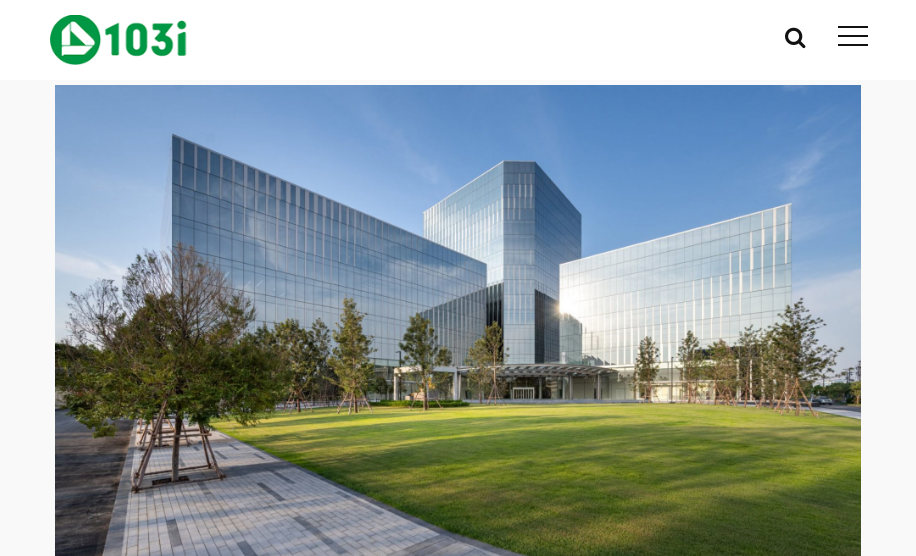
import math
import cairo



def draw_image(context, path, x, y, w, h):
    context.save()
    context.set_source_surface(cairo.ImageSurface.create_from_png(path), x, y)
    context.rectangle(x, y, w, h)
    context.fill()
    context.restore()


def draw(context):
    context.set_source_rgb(1, 1, 1)
    context.paint()
    draw_image(context, "images/1.png", 50, 15, 137, 50)
    draw_image(context, "images/2.png", 785, 27, 21, 22)
    context.set_source_rgb(18 / 255, 18 / 255, 18 / 255)
    context.rectangle(838, 26, 30, 2)
    context.fill()
    context.rectangle(838, 35, 30, 2)
    context.fill()
    context.rectangle(838, 44, 30, 2)
    context.fill()
    context.set_source_rgb(249 / 255, 249 / 255, 249 / 255)
    context.rectangle(0, 80, 916, 476)
    context.fill()
    draw_image(context, "images/3.png", 55, 85, 806, 471)


surface = cairo.ImageSurface(cairo.Format.RGB24, 916, 556)
context = cairo.Context(surface)
options = cairo.FontOptions()
options.set_hint_metrics(cairo.HintMetrics.OFF)
options.set_hint_style(cairo.HintStyle.NONE)
context.set_font_options(options)
context.set_miter_limit(4)
draw(context)
surface.write_to_png("out.png")
